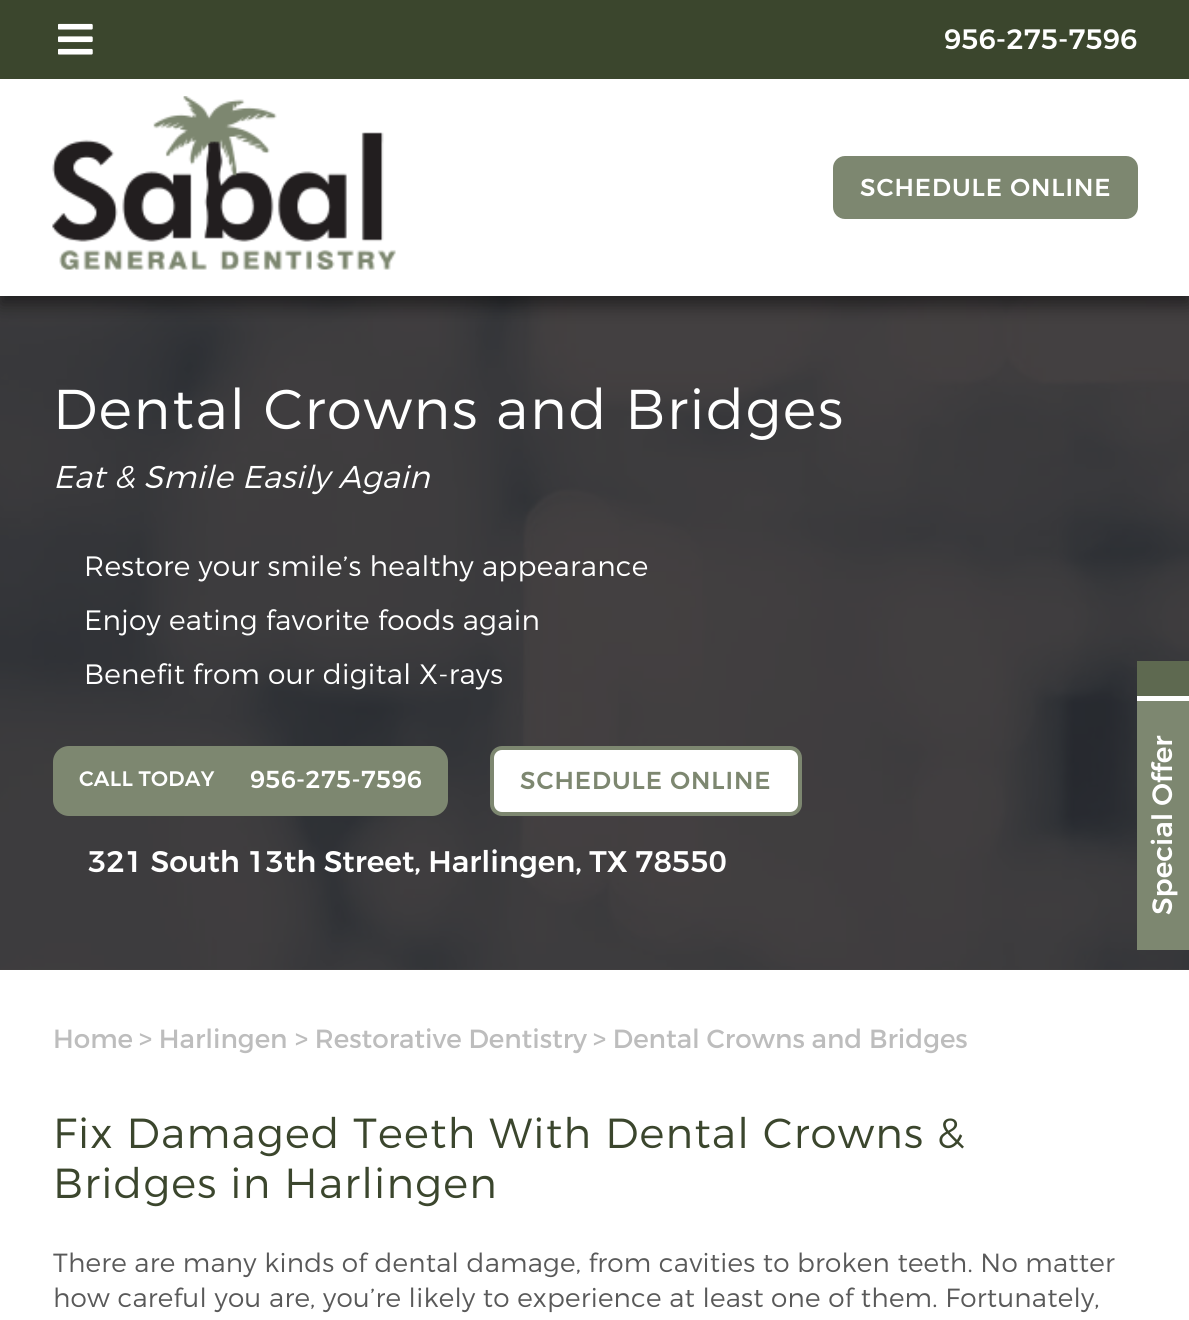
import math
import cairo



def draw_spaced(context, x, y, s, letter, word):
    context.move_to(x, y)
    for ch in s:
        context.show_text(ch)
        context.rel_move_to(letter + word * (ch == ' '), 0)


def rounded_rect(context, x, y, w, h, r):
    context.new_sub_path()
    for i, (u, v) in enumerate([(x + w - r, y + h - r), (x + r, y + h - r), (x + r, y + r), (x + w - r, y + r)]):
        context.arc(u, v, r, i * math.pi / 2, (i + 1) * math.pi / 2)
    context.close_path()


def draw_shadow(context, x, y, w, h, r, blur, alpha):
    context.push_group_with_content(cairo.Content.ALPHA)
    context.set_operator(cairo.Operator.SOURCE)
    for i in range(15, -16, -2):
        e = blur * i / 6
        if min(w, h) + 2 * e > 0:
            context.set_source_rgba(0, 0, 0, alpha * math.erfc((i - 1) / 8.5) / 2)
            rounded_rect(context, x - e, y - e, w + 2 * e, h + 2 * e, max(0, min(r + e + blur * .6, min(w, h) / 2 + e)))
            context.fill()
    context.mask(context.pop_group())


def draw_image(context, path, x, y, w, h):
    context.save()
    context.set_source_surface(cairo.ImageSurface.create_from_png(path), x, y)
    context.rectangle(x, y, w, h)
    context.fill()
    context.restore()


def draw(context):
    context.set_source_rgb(1, 1, 1)
    context.paint()
    context.set_source_rgb(67 / 255, 64 / 255, 65 / 255)
    context.rectangle(0, 969, 1189, 1)
    context.fill()
    draw_image(context, "images/3.png", 0, 296, 1189, 674)
    context.set_source_rgb(0, 0, 0)
    draw_shadow(context, 0, 9, 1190, 296, 0, 9, 0.5)
    context.set_source_rgb(1, 1, 1)
    context.rectangle(0, 79, 1189, 217)
    context.fill()
    context.set_source_rgb(59 / 255, 70 / 255, 45 / 255)
    context.rectangle(0, 0, 1189, 79)
    context.fill()
    draw_image(context, "images/1.png", 58, 23, 35, 32)
    draw_image(context, "images/2.png", 52, 96, 344, 174)
    context.set_source_rgb(125 / 255, 135 / 255, 112 / 255)
    rounded_rect(context, 833, 156, 305, 63, 12)
    context.fill()
    rounded_rect(context, 53, 746, 395, 70, 16)
    context.fill()
    context.set_source_rgb(1, 1, 1)
    rounded_rect(context, 492, 748, 308, 66, 10)
    context.fill_preserve()
    context.set_source_rgb(125 / 255, 135 / 255, 112 / 255)
    context.set_line_width(4)
    context.stroke()
    context.set_source_rgb(94 / 255, 105 / 255, 80 / 255)
    context.rectangle(1137, 661, 52, 35)
    context.fill()
    context.set_source_rgb(125 / 255, 135 / 255, 112 / 255)
    context.rectangle(1137, 701, 52, 249)
    context.fill()
    context.set_source_rgb(1, 1, 1)
    context.rectangle(1137, 696, 52, 5)
    context.fill()
    context.select_font_face("Montserrat Medium")
    context.set_font_size(28)
    context.move_to(944, 49)
    context.show_text("956-275-7596")
    context.set_font_size(24.5)
    draw_spaced(context, 860, 196, "SCHEDULE ONLINE", 1, 0)
    context.select_font_face("Montserrat Light")
    context.set_font_size(56)
    draw_spaced(context, 53, 429, "Dental Crowns and Bridges", 1.7, 0)
    context.select_font_face("Montserrat Light", cairo.FontSlant.ITALIC)
    context.set_font_size(31.5)
    draw_spaced(context, 53, 488, "Eat & Smile Easily Again", 0.3, 0)
    context.select_font_face("Montserrat Light")
    context.set_font_size(28)
    draw_spaced(context, 84, 576, "Restore your smile’s healthy appearance", 0.3, 0)
    draw_spaced(context, 84, 630, "Enjoy eating favorite foods again", 0.3, 0)
    draw_spaced(context, 84, 684, "Benefit from our digital X-rays", 0.3, 0)
    context.select_font_face("Montserrat Medium")
    context.set_font_size(21)
    draw_spaced(context, 79, 786, "CALL TODAY", 0.25, 0)
    context.set_font_size(24.5)
    draw_spaced(context, 250, 788, "956-275-7596", 0.25, 0)
    context.set_source_rgb(125 / 255, 135 / 255, 112 / 255)
    draw_spaced(context, 520, 789, "SCHEDULE ONLINE", 1, 0)
    context.set_font_size(29.75)
    context.set_source_rgb(1, 1, 1)
    context.move_to(88, 872)
    context.show_text("321 South 13th Street, Harlingen, TX 78550")
    context.select_font_face("Montserrat")
    context.set_font_size(26.25)
    context.set_source_rgb(189 / 255, 189 / 255, 189 / 255)
    context.move_to(53, 1048)
    context.show_text("Home")
    context.move_to(139, 1048)
    context.show_text("> Harlingen")
    context.move_to(295, 1048)
    context.show_text("> Restorative Dentistry")
    context.move_to(593, 1048)
    context.show_text("> Dental Crowns and Bridges")
    context.select_font_face("Montserrat Light")
    context.set_font_size(42)
    context.set_source_rgb(59 / 255, 70 / 255, 45 / 255)
    draw_spaced(context, 53, 1148, "Fix Damaged Teeth With Dental Crowns &", 1.25, 0)
    draw_spaced(context, 53, 1198, "Bridges in Harlingen", 1.25, 0)
    context.set_font_size(26.25)
    context.set_source_rgb(89 / 255, 89 / 255, 89 / 255)
    draw_spaced(context, 53, 1272, "There are many kinds of dental damage, from cavities to broken teeth. No matter", 0.25, 0)
    draw_spaced(context, 53, 1307, "how careful you are, you’re likely to experience at least one of them. Fortunately,", 0.25, 0)
    context.select_font_face("Montserrat Medium")
    context.set_font_size(28)
    context.set_source_rgb(1, 1, 1)
    context.save()
    context.translate(1172, 915)
    context.rotate(-90 * math.pi / 180)
    context.move_to(0, 0)
    context.show_text("Special Offer")
    context.restore()


surface = cairo.ImageSurface(cairo.Format.RGB24, 1189, 1320)
context = cairo.Context(surface)
options = cairo.FontOptions()
options.set_hint_metrics(cairo.HintMetrics.OFF)
options.set_hint_style(cairo.HintStyle.NONE)
context.set_font_options(options)
context.set_miter_limit(4)
draw(context)
surface.write_to_png("out.png")
